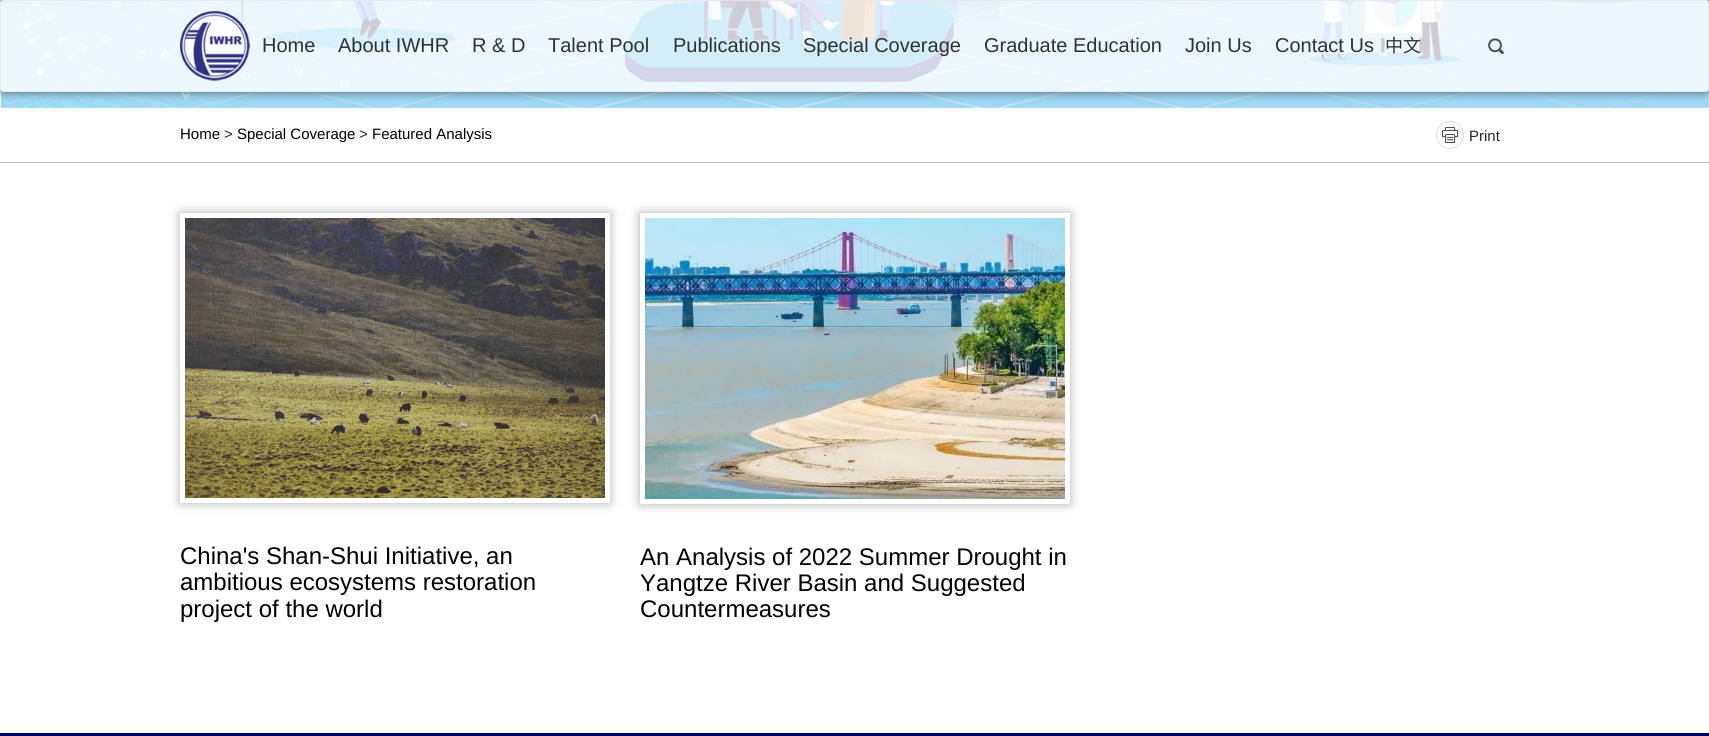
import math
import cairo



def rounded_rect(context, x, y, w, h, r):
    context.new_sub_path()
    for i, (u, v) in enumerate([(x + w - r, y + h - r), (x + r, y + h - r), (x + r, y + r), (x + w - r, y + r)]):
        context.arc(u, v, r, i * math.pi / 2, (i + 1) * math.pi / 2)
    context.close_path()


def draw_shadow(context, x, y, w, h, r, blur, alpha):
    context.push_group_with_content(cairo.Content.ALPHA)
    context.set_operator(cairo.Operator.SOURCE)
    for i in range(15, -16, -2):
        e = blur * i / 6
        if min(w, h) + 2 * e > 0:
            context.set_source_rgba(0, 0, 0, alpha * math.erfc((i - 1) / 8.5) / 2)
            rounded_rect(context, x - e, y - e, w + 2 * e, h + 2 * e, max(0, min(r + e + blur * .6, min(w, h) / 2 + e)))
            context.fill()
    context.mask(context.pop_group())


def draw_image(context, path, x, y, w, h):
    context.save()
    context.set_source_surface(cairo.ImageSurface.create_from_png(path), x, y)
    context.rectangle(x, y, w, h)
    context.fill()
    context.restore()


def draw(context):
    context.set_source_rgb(1, 1, 1)
    context.paint()
    draw_image(context, "images/1.png", 0, 0, 1709, 108)
    context.save()
    context.set_fill_rule(cairo.FillRule.EVEN_ODD)
    context.new_path()
    context.move_to(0, 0)
    context.line_to(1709, 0)
    context.line_to(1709, 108)
    context.line_to(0, 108)
    context.close_path()
    context.move_to(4, 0)
    context.line_to(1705, 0)
    context.curve_to(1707, 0, 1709, 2, 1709, 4)
    context.line_to(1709, 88)
    context.curve_to(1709, 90, 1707, 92, 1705, 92)
    context.line_to(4, 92)
    context.curve_to(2, 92, 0, 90, 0, 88)
    context.line_to(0, 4)
    context.curve_to(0, 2, 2, 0, 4, 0)
    context.close_path()
    context.clip()
    context.set_source_rgb(51 / 255, 51 / 255, 51 / 255)
    draw_shadow(context, 0, 0, 1709, 92, 4, 5, 0.8)
    context.restore()
    context.set_source_rgba(1, 1, 1, 0.8)
    rounded_rect(context, 0, 0, 1709, 92, 4)
    context.fill()
    rounded_rect(context, 0.5, 0.5, 1708, 91, 3.5)
    context.set_source_rgba(231 / 255, 231 / 255, 231 / 255, 0.8)
    context.set_line_width(1)
    context.stroke()
    draw_image(context, "images/2.png", 180, 11, 70, 70)
    draw_image(context, "images/3.png", 1488, 38, 16, 17)
    context.set_source_rgb(194 / 255, 194 / 255, 194 / 255)
    context.rectangle(0, 162, 1709, 1)
    context.fill()
    context.arc(1450, 135, 13.5, 0, 2 * math.pi)
    context.set_source_rgb(221 / 255, 221 / 255, 221 / 255)
    context.stroke()
    draw_image(context, "images/4.png", 1442, 127, 17, 16)
    context.save()
    context.set_fill_rule(cairo.FillRule.EVEN_ODD)
    context.new_path()
    context.move_to(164, 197)
    context.line_to(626, 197)
    context.line_to(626, 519)
    context.line_to(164, 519)
    context.close_path()
    context.move_to(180, 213)
    context.line_to(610, 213)
    context.line_to(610, 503)
    context.line_to(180, 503)
    context.close_path()
    context.clip()
    context.set_source_rgb(175 / 255, 175 / 255, 175 / 255)
    draw_shadow(context, 180, 213, 430, 290, 0, 5, 1)
    context.restore()
    draw_image(context, "images/5.png", 185, 218, 420, 280)
    context.save()
    context.set_fill_rule(cairo.FillRule.EVEN_ODD)
    context.new_path()
    context.move_to(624, 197)
    context.line_to(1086, 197)
    context.line_to(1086, 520)
    context.line_to(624, 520)
    context.close_path()
    context.move_to(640, 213)
    context.line_to(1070, 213)
    context.line_to(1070, 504)
    context.line_to(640, 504)
    context.close_path()
    context.clip()
    context.set_source_rgb(175 / 255, 175 / 255, 175 / 255)
    draw_shadow(context, 640, 213, 430, 291, 0, 5, 1)
    context.restore()
    draw_image(context, "images/6.png", 645, 218, 420, 281)
    context.set_source_rgb(1 / 255, 1 / 255, 104 / 255)
    context.rectangle(0, 733, 1709, 3)
    context.fill()
    context.select_font_face("Liberation Sans")
    context.set_font_size(20)
    context.set_source_rgb(47 / 255, 49 / 255, 51 / 255)
    context.move_to(262, 52)
    context.show_text("Home")
    context.move_to(338, 52)
    context.show_text("About IWHR")
    context.move_to(472, 52)
    context.show_text("R & D")
    context.move_to(548, 52)
    context.show_text("Talent Pool")
    context.move_to(673, 52)
    context.show_text("Publications")
    context.move_to(803, 52)
    context.show_text("Special Coverage")
    context.move_to(984, 52)
    context.show_text("Graduate Education")
    context.move_to(1185, 52)
    context.show_text("Join Us")
    context.move_to(1275, 52)
    context.show_text("Contact Us")
    context.select_font_face("Noto Sans CJK SC")
    context.set_font_size(18)
    context.move_to(1385, 52)
    context.show_text("中文")
    context.select_font_face("Liberation Sans")
    context.set_font_size(15)
    context.set_source_rgb(0, 0, 0)
    context.move_to(180, 139)
    context.show_text("Home")
    context.set_source_rgb(33 / 255, 37 / 255, 41 / 255)
    context.move_to(224, 139)
    context.show_text(">")
    context.set_source_rgb(0, 0, 0)
    context.move_to(237, 139)
    context.show_text("Special Coverage")
    context.set_source_rgb(33 / 255, 37 / 255, 41 / 255)
    context.move_to(359, 139)
    context.show_text(">")
    context.set_source_rgb(0, 0, 0)
    context.move_to(372, 139)
    context.show_text("Featured Analysis")
    context.set_source_rgb(33 / 255, 37 / 255, 41 / 255)
    context.move_to(1469, 141)
    context.show_text("Print")
    context.set_font_size(24)
    context.set_source_rgb(0, 0, 0)
    context.move_to(180, 564)
    context.show_text("China's Shan-Shui Initiative, an")
    context.move_to(180, 590)
    context.show_text("ambitious ecosystems restoration")
    context.move_to(180, 617)
    context.show_text("project of the world")
    context.move_to(640, 565)
    context.show_text("An Analysis of 2022 Summer Drought in")
    context.move_to(640, 591)
    context.show_text("Yangtze River Basin and Suggested")
    context.move_to(640, 617)
    context.show_text("Countermeasures")


surface = cairo.ImageSurface(cairo.Format.RGB24, 1709, 736)
context = cairo.Context(surface)
options = cairo.FontOptions()
options.set_hint_metrics(cairo.HintMetrics.OFF)
options.set_hint_style(cairo.HintStyle.NONE)
context.set_font_options(options)
context.set_miter_limit(4)
draw(context)
surface.write_to_png("out.png")
